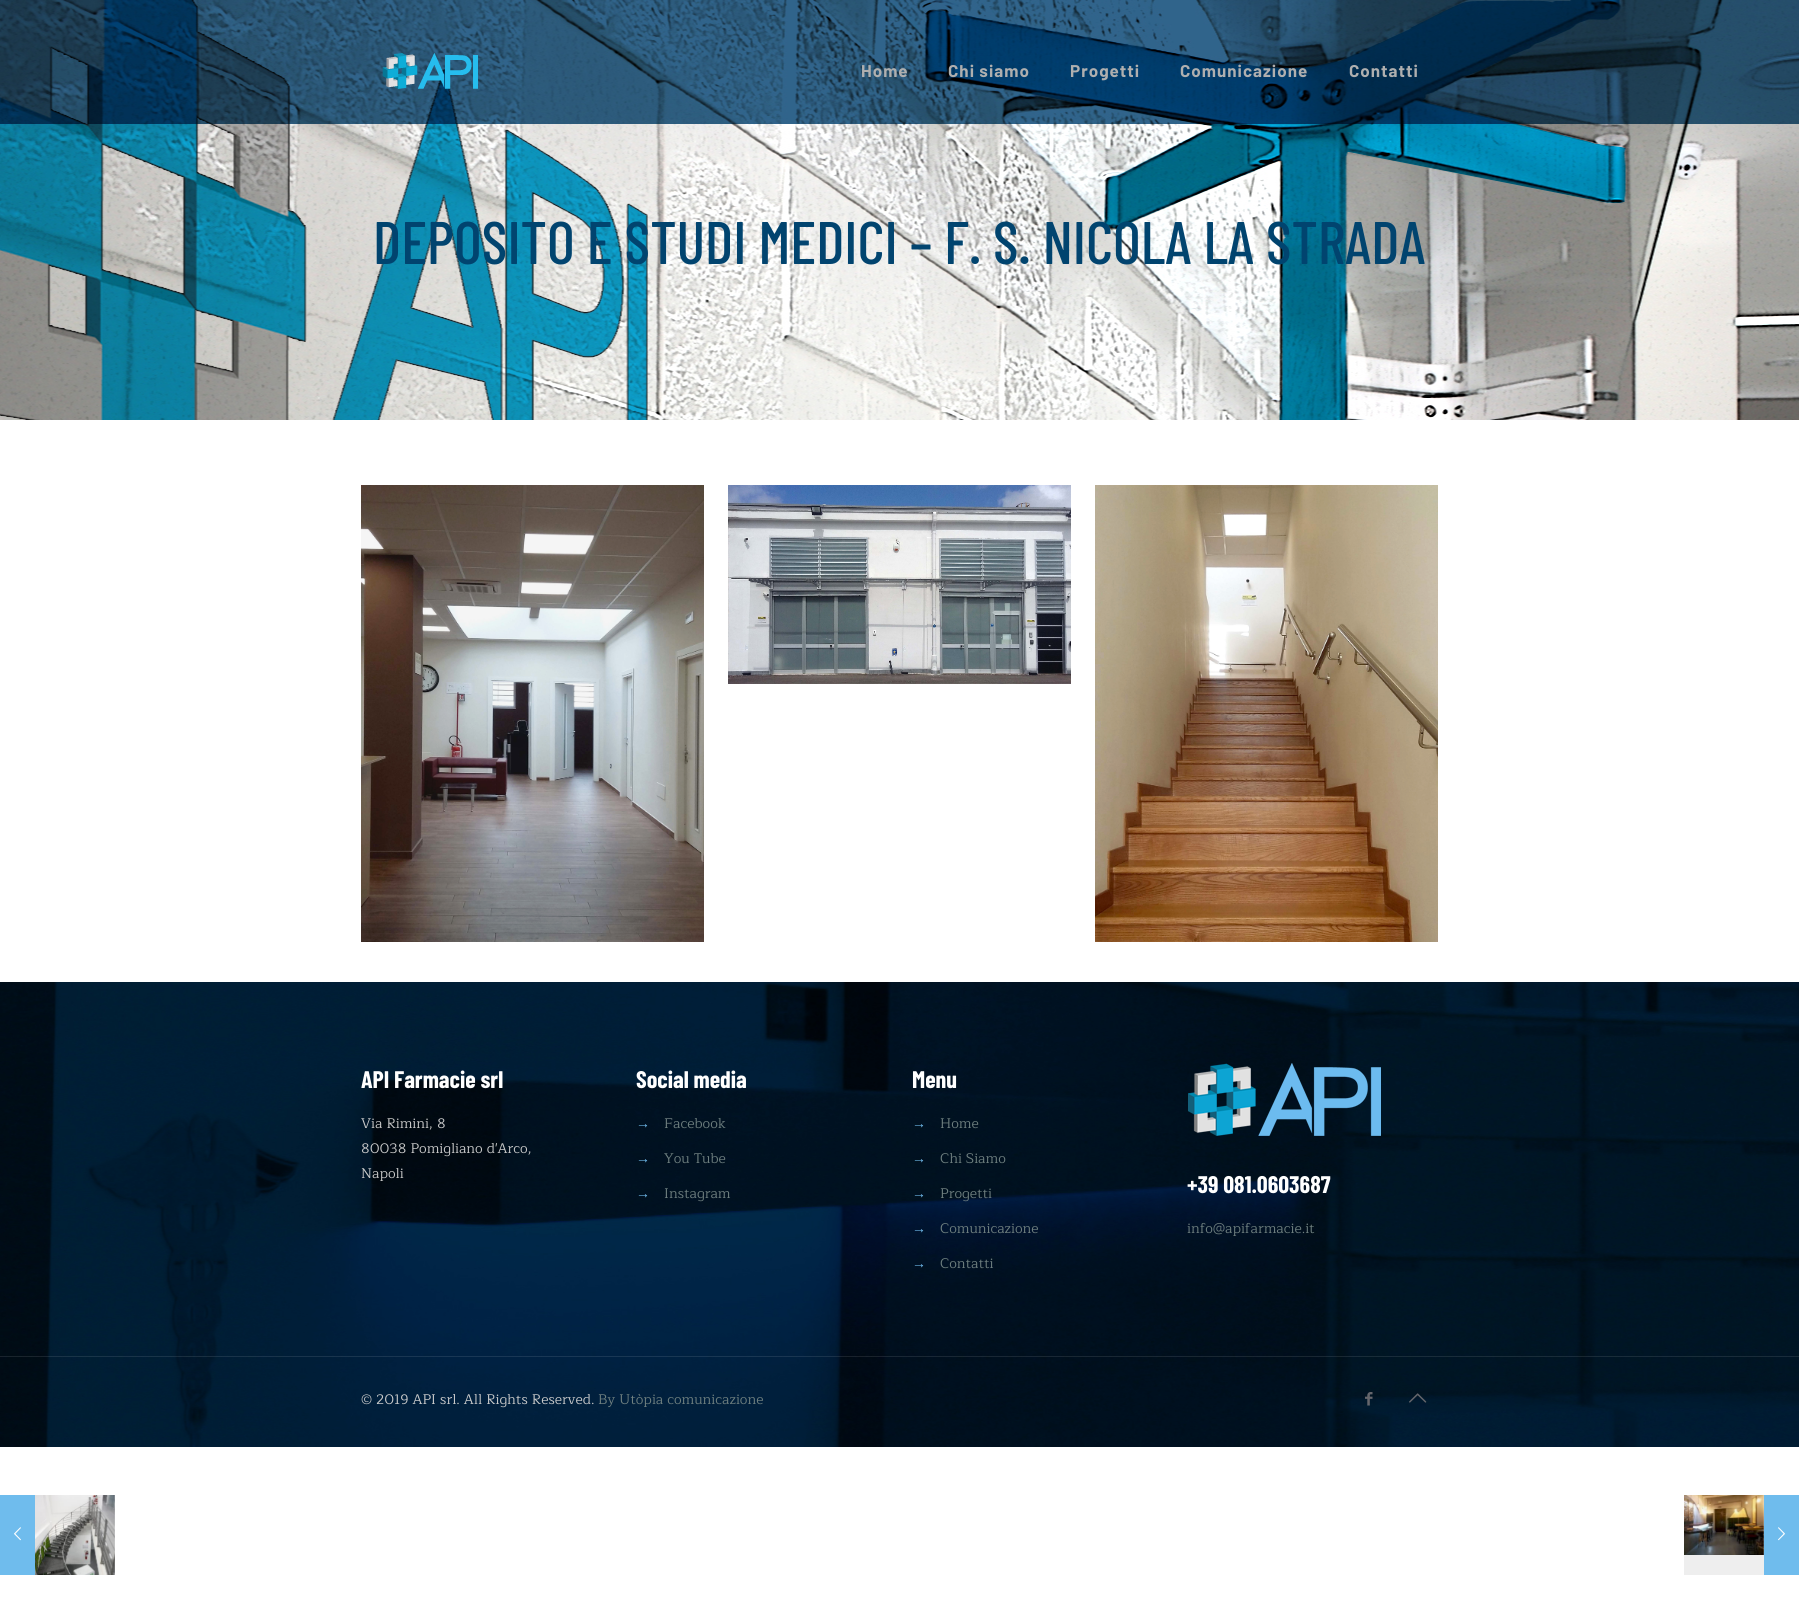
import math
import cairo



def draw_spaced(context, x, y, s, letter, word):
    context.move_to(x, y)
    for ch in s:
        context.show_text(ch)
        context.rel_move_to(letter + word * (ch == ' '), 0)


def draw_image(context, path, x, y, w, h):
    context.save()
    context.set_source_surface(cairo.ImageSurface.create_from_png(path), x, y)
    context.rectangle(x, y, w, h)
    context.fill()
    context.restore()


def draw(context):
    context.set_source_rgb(1, 1, 1)
    context.paint()
    draw_image(context, "images/1.png", 0, 0, 1799, 420)
    draw_image(context, "images/2.png", 382, 53, 96, 36)
    draw_image(context, "images/3.png", 361, 485, 343, 457)
    draw_image(context, "images/4.png", 728, 485, 343, 199)
    draw_image(context, "images/5.png", 1095, 485, 343, 457)
    draw_image(context, "images/6.png", 0, 982, 1799, 465)
    draw_image(context, "images/7.png", 1188, 1063, 193, 73)
    context.set_source_rgba(1, 1, 1, 0.1)
    context.rectangle(0, 1356, 1799, 1)
    context.fill()
    draw_image(context, "images/8.png", 1365, 1392, 8, 14)
    draw_image(context, "images/9.png", 1409, 1393, 18, 10)
    context.set_source_rgb(111 / 255, 188 / 255, 237 / 255)
    context.rectangle(0, 1495, 35, 80)
    context.fill()
    draw_image(context, "images/10.png", 14, 1527, 7, 14)
    draw_image(context, "images/11.png", 35, 1495, 80, 80)
    context.set_source_rgb(238 / 255, 238 / 255, 238 / 255)
    context.rectangle(1684, 1495, 80, 80)
    context.fill()
    draw_image(context, "images/12.png", 1684, 1495, 80, 60)
    context.set_source_rgb(111 / 255, 188 / 255, 237 / 255)
    context.rectangle(1764, 1495, 35, 80)
    context.fill()
    draw_image(context, "images/13.png", 1778, 1527, 7, 14)
    context.select_font_face("Barlow", cairo.FontSlant.NORMAL, cairo.FontWeight.BOLD)
    context.set_font_size(17)
    context.set_source_rgb(175 / 255, 175 / 255, 175 / 255)
    draw_spaced(context, 861, 77, "Home", 1, 0)
    draw_spaced(context, 948, 77, "Chi siamo", 1, 0)
    draw_spaced(context, 1070, 77, "Progetti", 1, 0)
    draw_spaced(context, 1180, 77, "Comunicazione", 1, 0)
    draw_spaced(context, 1349, 77, "Contatti", 1, 0)
    context.select_font_face("Barlow Condensed Medium")
    context.set_font_size(60)
    context.set_source_rgb(1 / 255, 68 / 255, 111 / 255)
    context.move_to(373, 264)
    context.show_text("DEPOSITO E STUDI MEDICI – F. S. NICOLA LA STRADA")
    context.select_font_face("Barlow Condensed", cairo.FontSlant.NORMAL, cairo.FontWeight.BOLD)
    context.set_font_size(24)
    context.set_source_rgb(1, 1, 1)
    context.move_to(361, 1088)
    context.show_text("API Farmacie srl")
    context.select_font_face("Maitree")
    context.set_font_size(14)
    context.set_source_rgb(204 / 255, 204 / 255, 204 / 255)
    context.move_to(361, 1128)
    context.show_text("Via Rimini, 8")
    context.move_to(361, 1153)
    context.show_text("80038 Pomigliano d'Arco,")
    context.move_to(361, 1178)
    context.show_text("Napoli")
    context.select_font_face("Barlow Condensed", cairo.FontSlant.NORMAL, cairo.FontWeight.BOLD)
    context.set_font_size(24)
    context.set_source_rgb(1, 1, 1)
    context.move_to(636, 1088)
    context.show_text("Social media")
    context.select_font_face("Liberation Sans")
    context.set_font_size(14)
    context.set_source_rgb(112 / 255, 188 / 255, 237 / 255)
    context.move_to(636, 1128)
    context.show_text("→")
    context.select_font_face("Maitree")
    context.set_source_rgb(111 / 255, 128 / 255, 128 / 255)
    context.move_to(664, 1128)
    context.show_text("Facebook")
    context.select_font_face("Liberation Sans")
    context.set_source_rgb(112 / 255, 188 / 255, 237 / 255)
    context.move_to(636, 1163)
    context.show_text("→")
    context.select_font_face("Maitree")
    context.set_source_rgb(111 / 255, 128 / 255, 128 / 255)
    context.move_to(664, 1163)
    context.show_text("You Tube")
    context.select_font_face("Liberation Sans")
    context.set_source_rgb(112 / 255, 188 / 255, 237 / 255)
    context.move_to(636, 1198)
    context.show_text("→")
    context.select_font_face("Maitree")
    context.set_source_rgb(111 / 255, 128 / 255, 128 / 255)
    context.move_to(664, 1198)
    context.show_text("Instagram")
    context.select_font_face("Barlow Condensed", cairo.FontSlant.NORMAL, cairo.FontWeight.BOLD)
    context.set_font_size(24)
    context.set_source_rgb(1, 1, 1)
    context.move_to(912, 1088)
    context.show_text("Menu")
    context.select_font_face("Liberation Sans")
    context.set_font_size(14)
    context.set_source_rgb(112 / 255, 188 / 255, 237 / 255)
    context.move_to(912, 1128)
    context.show_text("→")
    context.select_font_face("Maitree")
    context.set_source_rgb(111 / 255, 128 / 255, 128 / 255)
    context.move_to(940, 1128)
    context.show_text("Home")
    context.select_font_face("Liberation Sans")
    context.set_source_rgb(112 / 255, 188 / 255, 237 / 255)
    context.move_to(912, 1163)
    context.show_text("→")
    context.select_font_face("Maitree")
    context.set_source_rgb(111 / 255, 128 / 255, 128 / 255)
    context.move_to(940, 1163)
    context.show_text("Chi Siamo")
    context.select_font_face("Liberation Sans")
    context.set_source_rgb(112 / 255, 188 / 255, 237 / 255)
    context.move_to(912, 1198)
    context.show_text("→")
    context.select_font_face("Maitree")
    context.set_source_rgb(111 / 255, 128 / 255, 128 / 255)
    context.move_to(940, 1198)
    context.show_text("Progetti")
    context.select_font_face("Liberation Sans")
    context.set_source_rgb(112 / 255, 188 / 255, 237 / 255)
    context.move_to(912, 1233)
    context.show_text("→")
    context.select_font_face("Maitree")
    context.set_source_rgb(111 / 255, 128 / 255, 128 / 255)
    context.move_to(940, 1233)
    context.show_text("Comunicazione")
    context.select_font_face("Liberation Sans")
    context.set_source_rgb(112 / 255, 188 / 255, 237 / 255)
    context.move_to(912, 1268)
    context.show_text("→")
    context.select_font_face("Maitree")
    context.set_source_rgb(111 / 255, 128 / 255, 128 / 255)
    context.move_to(940, 1268)
    context.show_text("Contatti")
    context.select_font_face("Barlow Condensed", cairo.FontSlant.NORMAL, cairo.FontWeight.BOLD)
    context.set_font_size(24)
    context.set_source_rgb(1, 1, 1)
    context.move_to(1187, 1193)
    context.show_text("+39 081.0603687")
    context.select_font_face("Maitree")
    context.set_font_size(14)
    context.set_source_rgb(111 / 255, 128 / 255, 128 / 255)
    context.move_to(1187, 1233)
    context.show_text("info@apifarmacie.it")
    context.set_source_rgb(204 / 255, 204 / 255, 204 / 255)
    context.move_to(361, 1404)
    context.show_text("© 2019 API srl. All Rights Reserved.")
    context.set_source_rgb(111 / 255, 128 / 255, 128 / 255)
    context.move_to(598, 1404)
    context.show_text("By Utòpia comunicazione")


surface = cairo.ImageSurface(cairo.Format.RGB24, 1799, 1615)
context = cairo.Context(surface)
options = cairo.FontOptions()
options.set_hint_metrics(cairo.HintMetrics.OFF)
options.set_hint_style(cairo.HintStyle.NONE)
context.set_font_options(options)
context.set_miter_limit(4)
draw(context)
surface.write_to_png("out.png")
